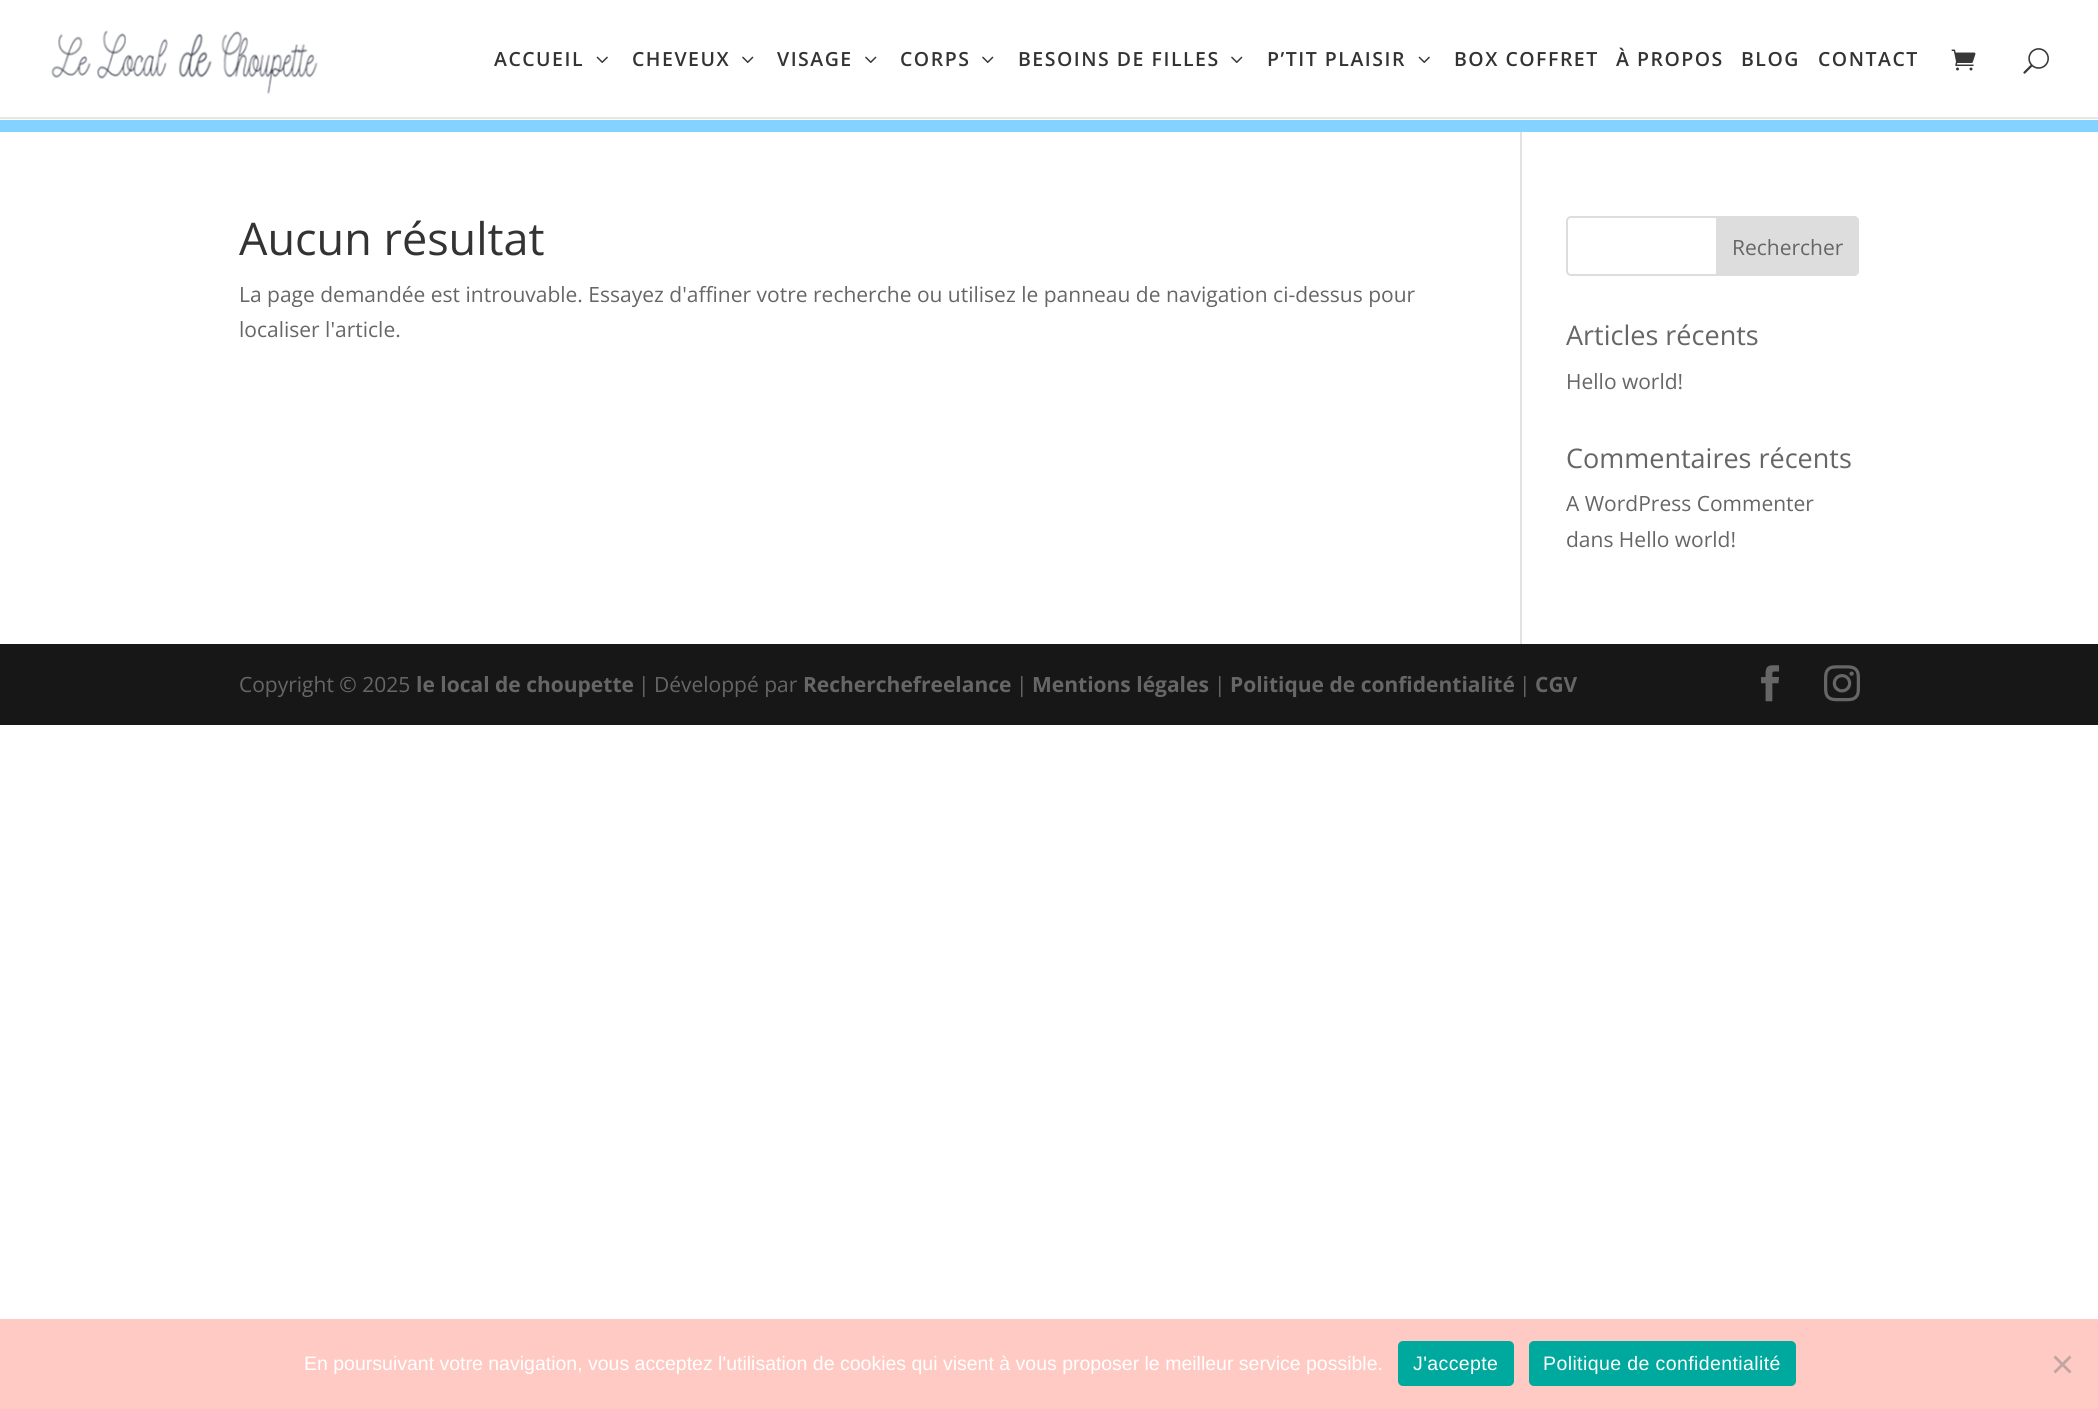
import math
import cairo



def draw_spaced(context, x, y, s, letter, word):
    context.move_to(x, y)
    for ch in s:
        context.show_text(ch)
        context.rel_move_to(letter + word * (ch == ' '), 0)


def rounded_rect(context, x, y, w, h, r):
    context.new_sub_path()
    for i, (u, v) in enumerate([(x + w - r, y + h - r), (x + r, y + h - r), (x + r, y + r), (x + w - r, y + r)]):
        context.arc(u, v, r, i * math.pi / 2, (i + 1) * math.pi / 2)
    context.close_path()


def draw_image(context, path, x, y, w, h):
    context.save()
    context.set_source_surface(cairo.ImageSurface.create_from_png(path), x, y)
    context.rectangle(x, y, w, h)
    context.fill()
    context.restore()


def draw(context):
    context.set_source_rgb(1, 1, 1)
    context.paint()
    context.set_source_rgb(230 / 255, 230 / 255, 230 / 255)
    context.new_path()
    context.move_to(0, 117)
    context.line_to(0, 119)
    context.line_to(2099, 119)
    context.line_to(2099, 2)
    context.line_to(2098, 2)
    context.line_to(2098, 117)
    context.close_path()
    context.fill()
    draw_image(context, "images/1.png", 51, 30, 267, 64)
    draw_image(context, "images/2.png", 596, 56, 12, 7)
    draw_image(context, "images/3.png", 742, 56, 12, 7)
    draw_image(context, "images/3.png", 865, 56, 12, 7)
    draw_image(context, "images/3.png", 982, 56, 12, 7)
    draw_image(context, "images/3.png", 1231, 56, 12, 7)
    draw_image(context, "images/2.png", 1418, 56, 12, 7)
    draw_image(context, "images/4.png", 1951, 49, 25, 22)
    draw_image(context, "images/5.png", 2023, 48, 26, 26)
    context.set_source_rgb(226 / 255, 226 / 255, 226 / 255)
    context.rectangle(1520, 129, 2, 515)
    context.fill()
    rounded_rect(context, 1567, 217, 291, 58, 4)
    context.set_source_rgb(221 / 255, 221 / 255, 221 / 255)
    context.stroke()
    context.new_path()
    context.move_to(1717, 217)
    context.line_to(1854, 217)
    context.curve_to(1856, 217, 1858, 219, 1858, 221)
    context.line_to(1858, 271)
    context.curve_to(1858, 273, 1856, 275, 1854, 275)
    context.line_to(1717, 275)
    context.close_path()
    context.fill_preserve()
    context.stroke()
    context.set_source_rgb(23 / 255, 23 / 255, 23 / 255)
    context.rectangle(0, 644, 2098, 81)
    context.fill()
    draw_image(context, "images/6.png", 1761, 665, 19, 37)
    draw_image(context, "images/7.png", 1824, 665, 36, 37)
    context.set_source_rgb(132 / 255, 210 / 255, 1)
    context.rectangle(0, 120, 2098, 12)
    context.fill()
    context.set_source_rgb(1, 202 / 255, 195 / 255)
    context.rectangle(0, 1319, 2098, 90)
    context.fill()
    context.set_source_rgb(0, 169 / 255, 157 / 255)
    rounded_rect(context, 1398, 1341, 116, 45, 5)
    context.fill()
    rounded_rect(context, 1529, 1341, 267, 45, 5)
    context.fill()
    context.set_source_rgb(192 / 255, 165 / 255, 162 / 255)
    context.new_path()
    context.move_to(2069.5, 1355.5)
    context.line_to(2071.5, 1357.5)
    context.line_to(2055.5, 1373.5)
    context.line_to(2053.5, 1371.5)
    context.close_path()
    context.fill()
    context.new_path()
    context.move_to(2053.5, 1357.5)
    context.line_to(2055.5, 1355.5)
    context.line_to(2071.5, 1371.5)
    context.line_to(2069.5, 1373.5)
    context.close_path()
    context.fill()
    context.select_font_face("Open Sans SemiBold")
    context.set_font_size(19.5)
    context.set_source_rgb(51 / 255, 51 / 255, 51 / 255)
    draw_spaced(context, 494, 66, "ACCUEIL", 1.5, 0)
    draw_spaced(context, 632, 66, "CHEVEUX", 1.5, 0)
    draw_spaced(context, 777, 66, "VISAGE", 1.5, 0)
    draw_spaced(context, 900, 66, "CORPS", 1.5, 0)
    draw_spaced(context, 1018, 66, "BESOINS DE FILLES", 1.5, 0)
    draw_spaced(context, 1267, 66, "P’TIT PLAISIR", 1.5, 0)
    draw_spaced(context, 1454, 66, "BOX COFFRET", 1.5, 0)
    draw_spaced(context, 1616, 66, "À PROPOS", 1.5, 0)
    draw_spaced(context, 1741, 66, "BLOG", 1.5, 0)
    draw_spaced(context, 1818, 66, "CONTACT", 1.5, 0)
    context.select_font_face("Open Sans")
    context.set_font_size(45)
    context.move_to(239, 255)
    context.show_text("Aucun résultat")
    context.set_font_size(21)
    context.set_source_rgb(102 / 255, 102 / 255, 102 / 255)
    context.move_to(239, 302)
    context.show_text("La page demandée est introuvable. Essayez d'affiner votre recherche ou utilisez le panneau de navigation ci-dessus pour")
    context.move_to(239, 337)
    context.show_text("localiser l'article.")
    context.move_to(1732, 255)
    context.show_text("Rechercher")
    context.set_font_size(27)
    context.move_to(1566, 345)
    context.show_text("Articles récents")
    context.set_font_size(21)
    context.move_to(1566, 389)
    context.show_text("Hello world!")
    context.set_font_size(27)
    context.move_to(1566, 468)
    context.show_text("Commentaires récents")
    context.set_font_size(21)
    context.move_to(1566, 511)
    context.show_text("A WordPress Commenter")
    context.move_to(1566, 547)
    context.show_text("dans Hello world!")
    context.move_to(239, 692)
    context.show_text("Copyright © 2025")
    context.select_font_face("Open Sans", cairo.FontSlant.NORMAL, cairo.FontWeight.BOLD)
    context.move_to(416, 692)
    context.show_text("le local de choupette")
    context.select_font_face("Open Sans")
    context.move_to(638, 692)
    context.show_text("|")
    context.move_to(654, 692)
    context.show_text("Développé par")
    context.select_font_face("Open Sans", cairo.FontSlant.NORMAL, cairo.FontWeight.BOLD)
    context.move_to(803, 692)
    context.show_text("Recherchefreelance")
    context.select_font_face("Open Sans")
    context.move_to(1016, 692)
    context.show_text("|")
    context.select_font_face("Open Sans", cairo.FontSlant.NORMAL, cairo.FontWeight.BOLD)
    context.move_to(1032, 692)
    context.show_text("Mentions légales")
    context.select_font_face("Open Sans")
    context.move_to(1214, 692)
    context.show_text("|")
    context.select_font_face("Open Sans", cairo.FontSlant.NORMAL, cairo.FontWeight.BOLD)
    context.move_to(1230, 692)
    context.show_text("Politique de confidentialité")
    context.select_font_face("Open Sans")
    context.move_to(1519, 692)
    context.show_text("|")
    context.select_font_face("Open Sans", cairo.FontSlant.NORMAL, cairo.FontWeight.BOLD)
    context.move_to(1535, 692)
    context.show_text("CGV")
    context.select_font_face("Liberation Sans")
    context.set_font_size(19.5)
    context.set_source_rgb(1, 1, 1)
    context.move_to(304, 1370)
    context.show_text("En poursuivant votre navigation, vous acceptez l'utilisation de cookies qui visent à vous proposer le meilleur service possible.")
    draw_spaced(context, 1413, 1370, "J'accepte", 0.4, 0)
    draw_spaced(context, 1543, 1370, "Politique de confidentialité", 0.4, 0)


surface = cairo.ImageSurface(cairo.Format.RGB24, 2098, 1409)
context = cairo.Context(surface)
options = cairo.FontOptions()
options.set_hint_metrics(cairo.HintMetrics.OFF)
options.set_hint_style(cairo.HintStyle.NONE)
context.set_font_options(options)
context.set_miter_limit(4)
draw(context)
surface.write_to_png("out.png")
